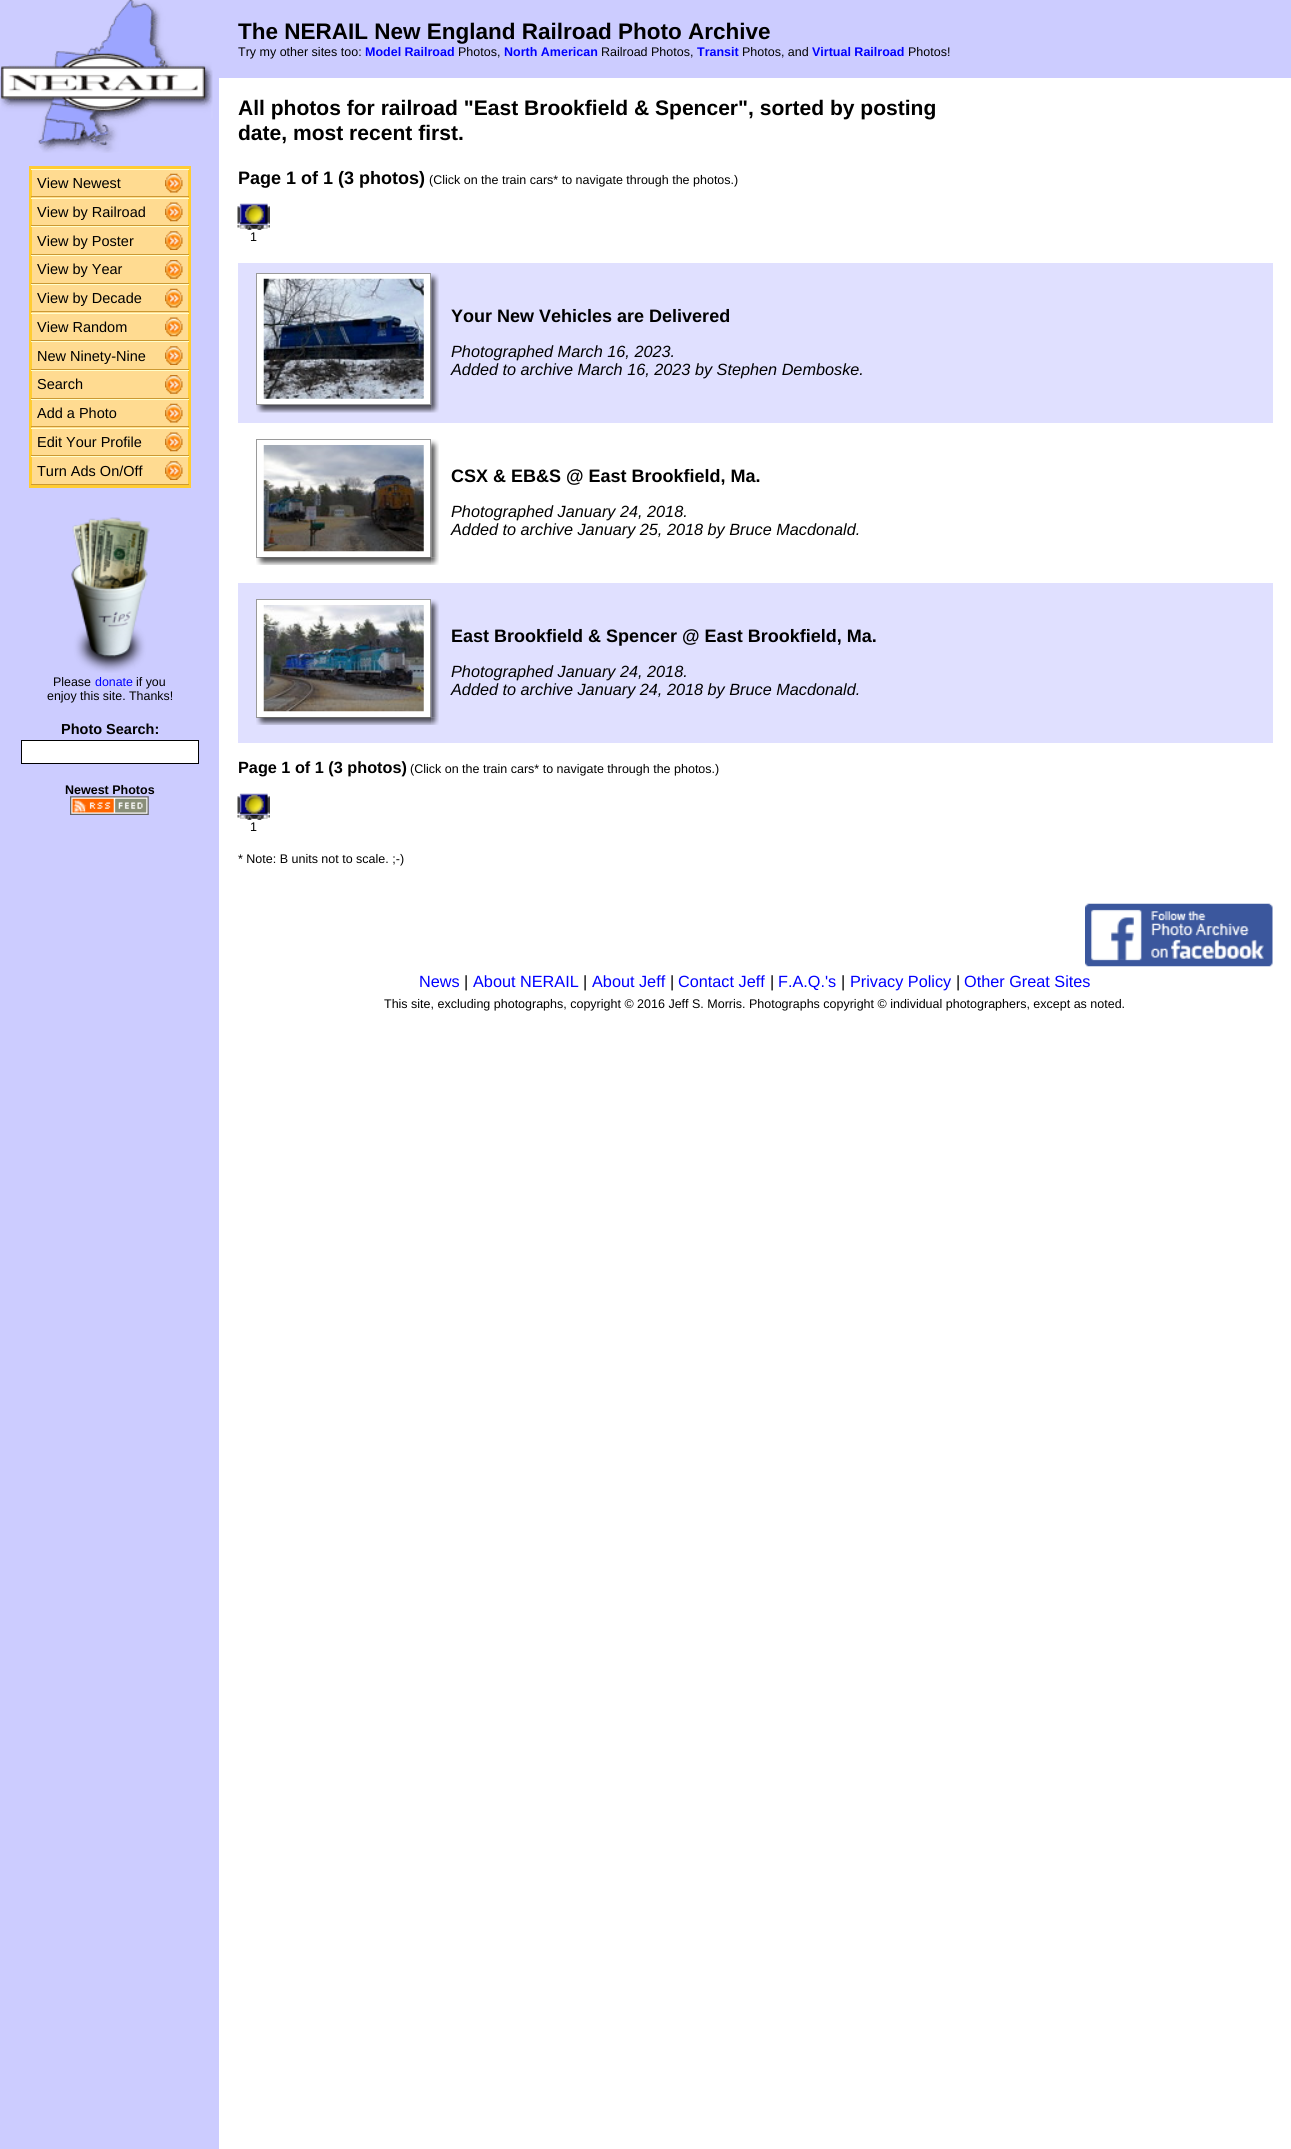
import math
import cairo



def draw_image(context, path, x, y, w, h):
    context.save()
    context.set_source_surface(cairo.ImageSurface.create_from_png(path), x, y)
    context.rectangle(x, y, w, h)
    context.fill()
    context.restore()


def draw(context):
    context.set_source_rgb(1, 1, 1)
    context.paint()
    context.set_source_rgb(204 / 255, 204 / 255, 1)
    context.rectangle(0, 0, 219, 2149)
    context.fill()
    draw_image(context, "images/1.png", 0, 0, 213, 153)
    context.set_source_rgb(1, 219 / 255, 145 / 255)
    context.rectangle(32, 170, 156, 314)
    context.fill()
    context.rectangle(30.5, 167.5, 159, 319)
    context.set_source_rgb(1, 204 / 255, 51 / 255)
    context.set_line_width(3)
    context.stroke()
    context.set_source_rgb(1, 1, 204 / 255)
    context.rectangle(31, 169, 158, 1)
    context.fill()
    context.set_source_rgb(204 / 255, 153 / 255, 51 / 255)
    context.rectangle(31, 196, 158, 1)
    context.fill()
    draw_image(context, "images/2.png", 165, 173, 18, 20)
    context.set_source_rgb(1, 1, 204 / 255)
    context.rectangle(31, 198, 158, 1)
    context.fill()
    context.set_source_rgb(204 / 255, 153 / 255, 51 / 255)
    context.rectangle(31, 225, 158, 1)
    context.fill()
    draw_image(context, "images/3.png", 165, 202, 18, 20)
    context.set_source_rgb(1, 1, 204 / 255)
    context.rectangle(31, 226, 158, 1)
    context.fill()
    context.set_source_rgb(204 / 255, 153 / 255, 51 / 255)
    context.rectangle(31, 254, 158, 1)
    context.fill()
    draw_image(context, "images/4.png", 165, 231, 18, 19)
    context.set_source_rgb(1, 1, 204 / 255)
    context.rectangle(31, 255, 158, 1)
    context.fill()
    context.set_source_rgb(204 / 255, 153 / 255, 51 / 255)
    context.rectangle(31, 283, 158, 1)
    context.fill()
    draw_image(context, "images/5.png", 165, 260, 18, 19)
    context.set_source_rgb(1, 1, 204 / 255)
    context.rectangle(31, 284, 158, 1)
    context.fill()
    context.set_source_rgb(204 / 255, 153 / 255, 51 / 255)
    context.rectangle(31, 311, 158, 1)
    context.fill()
    draw_image(context, "images/6.png", 165, 288, 18, 20)
    context.set_source_rgb(1, 1, 204 / 255)
    context.rectangle(31, 313, 158, 1)
    context.fill()
    context.set_source_rgb(204 / 255, 153 / 255, 51 / 255)
    context.rectangle(31, 340, 158, 1)
    context.fill()
    draw_image(context, "images/3.png", 165, 317, 18, 20)
    context.set_source_rgb(1, 1, 204 / 255)
    context.rectangle(31, 341, 158, 1)
    context.fill()
    context.set_source_rgb(204 / 255, 153 / 255, 51 / 255)
    context.rectangle(31, 369, 158, 1)
    context.fill()
    draw_image(context, "images/4.png", 165, 346, 18, 19)
    context.set_source_rgb(1, 1, 204 / 255)
    context.rectangle(31, 370, 158, 1)
    context.fill()
    context.set_source_rgb(204 / 255, 153 / 255, 51 / 255)
    context.rectangle(31, 398, 158, 1)
    context.fill()
    draw_image(context, "images/5.png", 165, 375, 18, 19)
    context.set_source_rgb(1, 1, 204 / 255)
    context.rectangle(31, 399, 158, 1)
    context.fill()
    context.set_source_rgb(204 / 255, 153 / 255, 51 / 255)
    context.rectangle(31, 426, 158, 1)
    context.fill()
    draw_image(context, "images/2.png", 165, 403, 18, 20)
    context.set_source_rgb(1, 1, 204 / 255)
    context.rectangle(31, 428, 158, 1)
    context.fill()
    context.set_source_rgb(204 / 255, 153 / 255, 51 / 255)
    context.rectangle(31, 455, 158, 1)
    context.fill()
    draw_image(context, "images/3.png", 165, 432, 18, 20)
    context.set_source_rgb(1, 1, 204 / 255)
    context.rectangle(31, 456, 158, 1)
    context.fill()
    context.set_source_rgb(204 / 255, 153 / 255, 51 / 255)
    context.rectangle(31, 484, 158, 1)
    context.fill()
    draw_image(context, "images/4.png", 165, 461, 18, 19)
    draw_image(context, "images/7.png", 71, 517, 79, 156)
    context.set_source_rgb(1, 1, 1)
    context.rectangle(21.5, 740.5, 177, 23)
    context.fill_preserve()
    context.set_source_rgb(0, 0, 0)
    context.set_line_width(1)
    context.stroke()
    draw_image(context, "images/8.png", 70, 796, 79, 19)
    context.set_source_rgb(204 / 255, 204 / 255, 1)
    context.rectangle(219, 0, 1072, 78)
    context.fill()
    draw_image(context, "images/9.png", 237, 203, 33, 27)
    context.set_source_rgb(224 / 255, 224 / 255, 1)
    context.rectangle(238, 263, 1035, 160)
    context.fill()
    context.set_source_rgb(1, 1, 1)
    context.rectangle(256.5, 273.5, 174, 131)
    context.fill_preserve()
    context.set_source_rgb(154 / 255, 154 / 255, 154 / 255)
    context.stroke()
    draw_image(context, "images/10.png", 263, 278, 161, 121)
    draw_image(context, "images/11.png", 431, 273, 8, 132)
    draw_image(context, "images/12.png", 256, 405, 176, 8)
    draw_image(context, "images/13.png", 431, 405, 8, 8)
    context.rectangle(256.5, 439.5, 174, 118)
    context.stroke()
    draw_image(context, "images/14.png", 263, 445, 161, 107)
    draw_image(context, "images/15.png", 431, 439, 8, 119)
    draw_image(context, "images/16.png", 256, 557, 176, 8)
    draw_image(context, "images/17.png", 431, 557, 8, 8)
    context.set_source_rgb(224 / 255, 224 / 255, 1)
    context.rectangle(238, 583, 1035, 160)
    context.fill()
    context.set_source_rgb(1, 1, 1)
    context.rectangle(256.5, 599.5, 174, 118)
    context.fill_preserve()
    context.set_source_rgb(154 / 255, 154 / 255, 154 / 255)
    context.stroke()
    draw_image(context, "images/18.png", 263, 605, 161, 107)
    draw_image(context, "images/19.png", 431, 599, 8, 119)
    draw_image(context, "images/20.png", 256, 717, 176, 8)
    draw_image(context, "images/21.png", 431, 717, 8, 8)
    draw_image(context, "images/9.png", 237, 793, 33, 27)
    draw_image(context, "images/22.png", 1085, 903, 188, 64)
    context.select_font_face("Liberation Sans")
    context.set_font_size(14.5)
    context.set_source_rgb(0, 0, 0)
    context.move_to(37, 188)
    context.show_text("View Newest")
    context.move_to(37, 217)
    context.show_text("View by Railroad")
    context.move_to(37, 246)
    context.show_text("View by Poster")
    context.move_to(37, 274)
    context.show_text("View by Year")
    context.move_to(37, 303)
    context.show_text("View by Decade")
    context.move_to(37, 332)
    context.show_text("View Random")
    context.move_to(37, 361)
    context.show_text("New Ninety-Nine")
    context.move_to(37, 389)
    context.show_text("Search")
    context.move_to(37, 418)
    context.show_text("Add a Photo")
    context.move_to(37, 447)
    context.show_text("Edit Your Profile")
    context.move_to(37, 476)
    context.show_text("Turn Ads On/Off")
    context.set_font_size(12.4)
    context.move_to(53, 686)
    context.show_text("Please")
    context.set_source_rgb(0, 0, 1)
    context.move_to(95, 686)
    context.show_text("donate")
    context.set_source_rgb(0, 0, 0)
    context.move_to(136, 686)
    context.show_text("if you")
    context.move_to(47, 700)
    context.show_text("enjoy this site. Thanks!")
    context.select_font_face("Liberation Sans", cairo.FontSlant.NORMAL, cairo.FontWeight.BOLD)
    context.set_font_size(14.5)
    context.move_to(61, 734)
    context.show_text("Photo Search:")
    context.set_font_size(12.5)
    context.move_to(65, 794)
    context.show_text("Newest Photos")
    context.set_font_size(22.5)
    context.move_to(238, 39)
    context.show_text("The NERAIL New England Railroad Photo Archive")
    context.select_font_face("Liberation Sans")
    context.set_font_size(12.5)
    context.move_to(238, 56)
    context.show_text("Try my other sites too:")
    context.select_font_face("Liberation Sans", cairo.FontSlant.NORMAL, cairo.FontWeight.BOLD)
    context.set_source_rgb(0, 0, 1)
    context.move_to(365, 56)
    context.show_text("Model Railroad")
    context.select_font_face("Liberation Sans")
    context.set_source_rgb(0, 0, 0)
    context.move_to(458, 56)
    context.show_text("Photos,")
    context.select_font_face("Liberation Sans", cairo.FontSlant.NORMAL, cairo.FontWeight.BOLD)
    context.set_source_rgb(0, 0, 1)
    context.move_to(504, 56)
    context.show_text("North American")
    context.select_font_face("Liberation Sans")
    context.set_source_rgb(0, 0, 0)
    context.move_to(601, 56)
    context.show_text("Railroad Photos,")
    context.select_font_face("Liberation Sans", cairo.FontSlant.NORMAL, cairo.FontWeight.BOLD)
    context.set_source_rgb(0, 0, 1)
    context.move_to(697, 56)
    context.show_text("Transit")
    context.select_font_face("Liberation Sans")
    context.set_source_rgb(0, 0, 0)
    context.move_to(742, 56)
    context.show_text("Photos, and")
    context.select_font_face("Liberation Sans", cairo.FontSlant.NORMAL, cairo.FontWeight.BOLD)
    context.set_source_rgb(0, 0, 1)
    context.move_to(812, 56)
    context.show_text("Virtual Railroad")
    context.select_font_face("Liberation Sans")
    context.set_source_rgb(0, 0, 0)
    context.move_to(908, 56)
    context.show_text("Photos!")
    context.select_font_face("Liberation Sans", cairo.FontSlant.NORMAL, cairo.FontWeight.BOLD)
    context.set_font_size(21.05)
    context.move_to(238, 115)
    context.show_text("All photos for railroad \"East Brookfield & Spencer\", sorted by posting")
    context.move_to(238, 140)
    context.show_text("date, most recent first.")
    context.set_font_size(18)
    context.move_to(238, 184)
    context.show_text("Page 1 of 1 (3 photos)")
    context.select_font_face("Liberation Sans")
    context.set_font_size(12.5)
    context.move_to(429, 184)
    context.show_text("(Click on the train cars* to navigate through the photos.)")
    context.move_to(250, 241)
    context.show_text("1")
    context.select_font_face("Liberation Sans", cairo.FontSlant.NORMAL, cairo.FontWeight.BOLD)
    context.set_font_size(18)
    context.move_to(451, 322)
    context.show_text("Your New Vehicles are Delivered")
    context.select_font_face("Liberation Sans", cairo.FontSlant.ITALIC)
    context.set_font_size(16.25)
    context.move_to(451, 357)
    context.show_text("Photographed March 16, 2023.")
    context.move_to(451, 375)
    context.show_text("Added to archive March 16, 2023 by Stephen Demboske.")
    context.select_font_face("Liberation Sans", cairo.FontSlant.NORMAL, cairo.FontWeight.BOLD)
    context.set_font_size(18)
    context.move_to(451, 482)
    context.show_text("CSX & EB&S @ East Brookfield, Ma.")
    context.select_font_face("Liberation Sans", cairo.FontSlant.ITALIC)
    context.set_font_size(16.25)
    context.move_to(451, 517)
    context.show_text("Photographed January 24, 2018.")
    context.move_to(451, 535)
    context.show_text("Added to archive January 25, 2018 by Bruce Macdonald.")
    context.select_font_face("Liberation Sans", cairo.FontSlant.NORMAL, cairo.FontWeight.BOLD)
    context.set_font_size(18)
    context.move_to(451, 642)
    context.show_text("East Brookfield & Spencer @ East Brookfield, Ma.")
    context.select_font_face("Liberation Sans", cairo.FontSlant.ITALIC)
    context.set_font_size(16.25)
    context.move_to(451, 677)
    context.show_text("Photographed January 24, 2018.")
    context.move_to(451, 695)
    context.show_text("Added to archive January 24, 2018 by Bruce Macdonald.")
    context.select_font_face("Liberation Sans", cairo.FontSlant.NORMAL, cairo.FontWeight.BOLD)
    context.move_to(238, 773)
    context.show_text("Page 1 of 1 (3 photos)")
    context.select_font_face("Liberation Sans")
    context.set_font_size(12.5)
    context.move_to(410, 773)
    context.show_text("(Click on the train cars* to navigate through the photos.)")
    context.move_to(250, 831)
    context.show_text("1")
    context.move_to(238, 863)
    context.show_text("* Note: B units not to scale. ;-)")
    context.set_font_size(16.25)
    context.set_source_rgb(0, 0, 1)
    context.move_to(419, 987)
    context.show_text("News")
    context.set_source_rgb(0, 0, 0)
    context.move_to(464, 987)
    context.show_text("|")
    context.set_source_rgb(0, 0, 1)
    context.move_to(473, 987)
    context.show_text("About NERAIL")
    context.set_source_rgb(0, 0, 0)
    context.move_to(583, 987)
    context.show_text("|")
    context.set_source_rgb(0, 0, 1)
    context.move_to(592, 987)
    context.show_text("About Jeff")
    context.set_source_rgb(0, 0, 0)
    context.move_to(670, 987)
    context.show_text("|")
    context.set_source_rgb(0, 0, 1)
    context.move_to(678, 987)
    context.show_text("Contact Jeff")
    context.set_source_rgb(0, 0, 0)
    context.move_to(770, 987)
    context.show_text("|")
    context.set_source_rgb(0, 0, 1)
    context.move_to(778, 987)
    context.show_text("F.A.Q.'s")
    context.set_source_rgb(0, 0, 0)
    context.move_to(841, 987)
    context.show_text("|")
    context.set_source_rgb(0, 0, 1)
    context.move_to(850, 987)
    context.show_text("Privacy Policy")
    context.set_source_rgb(0, 0, 0)
    context.move_to(956, 987)
    context.show_text("|")
    context.set_source_rgb(0, 0, 1)
    context.move_to(964, 987)
    context.show_text("Other Great Sites")
    context.set_font_size(12.5)
    context.set_source_rgb(0, 0, 0)
    context.move_to(384, 1008)
    context.show_text("This site, excluding photographs, copyright © 2016 Jeff S. Morris. Photographs copyright © individual photographers, except as noted.")


surface = cairo.ImageSurface(cairo.Format.RGB24, 1291, 2149)
context = cairo.Context(surface)
options = cairo.FontOptions()
options.set_hint_metrics(cairo.HintMetrics.OFF)
options.set_hint_style(cairo.HintStyle.NONE)
context.set_font_options(options)
context.set_miter_limit(4)
draw(context)
surface.write_to_png("out.png")
